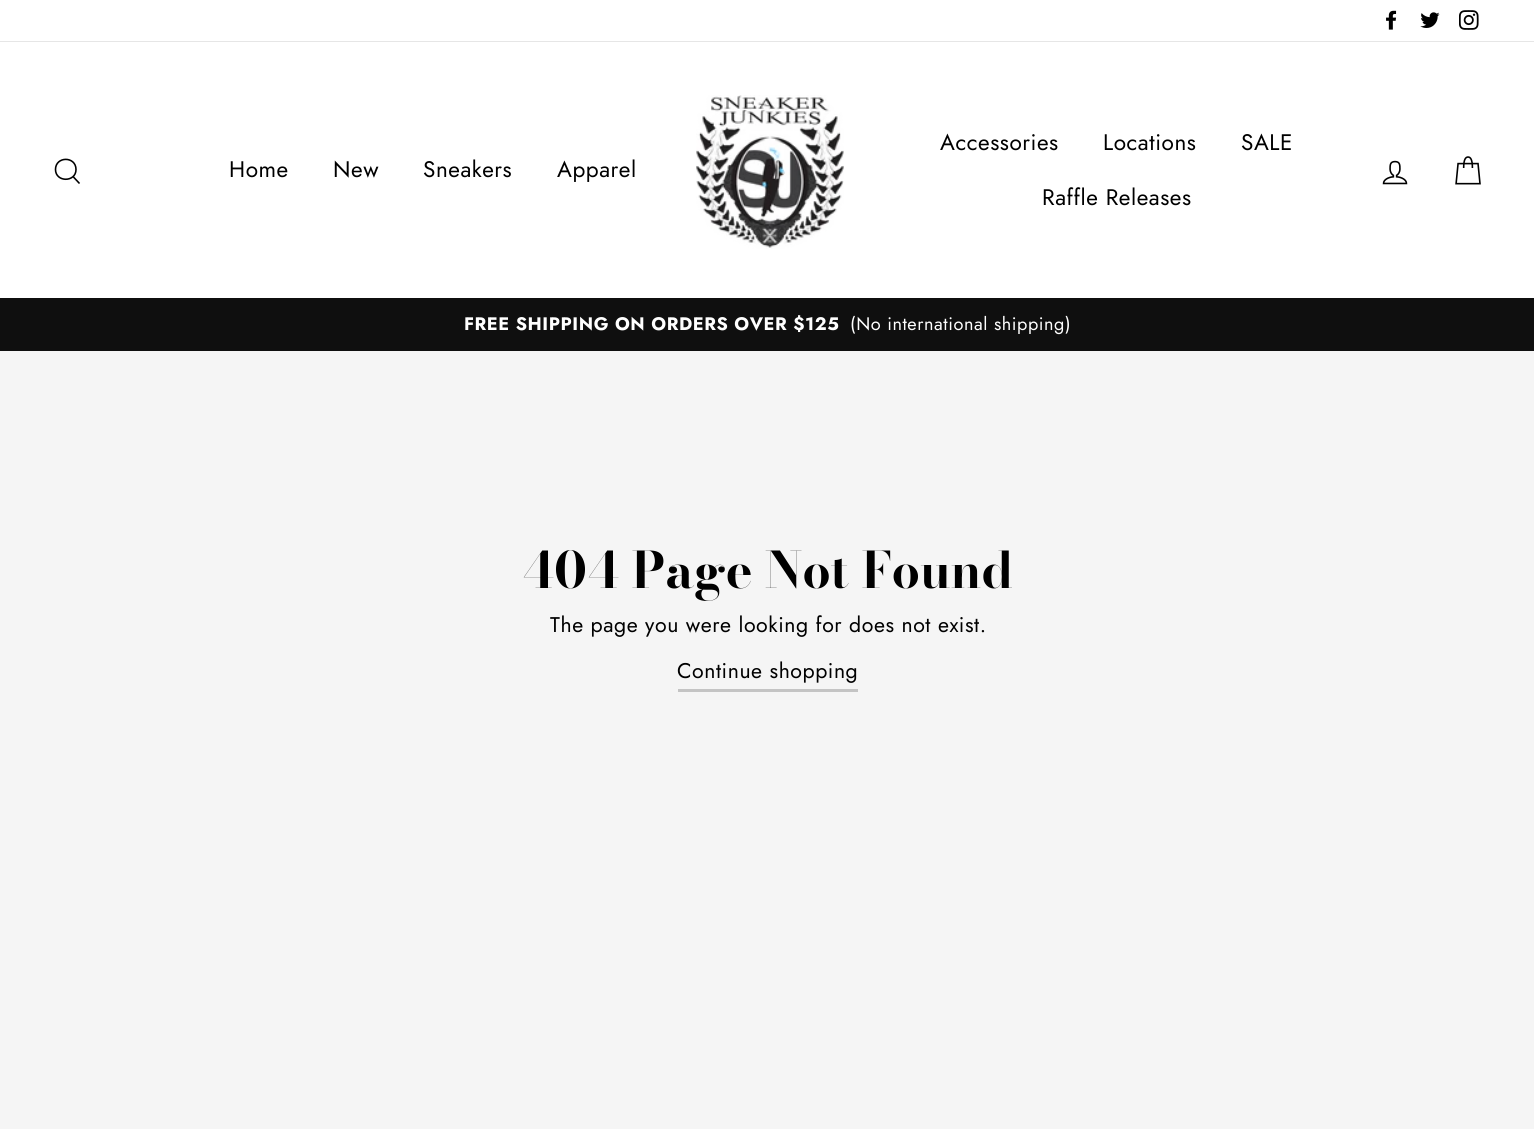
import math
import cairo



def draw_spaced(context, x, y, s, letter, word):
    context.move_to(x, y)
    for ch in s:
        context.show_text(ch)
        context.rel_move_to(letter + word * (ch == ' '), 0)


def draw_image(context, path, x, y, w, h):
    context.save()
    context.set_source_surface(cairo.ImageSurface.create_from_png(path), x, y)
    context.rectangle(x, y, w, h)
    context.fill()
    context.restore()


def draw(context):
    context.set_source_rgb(245 / 255, 245 / 255, 245 / 255)
    context.paint()
    context.set_source_rgb(1, 1, 1)
    context.rectangle(0, 0, 1534, 41)
    context.fill()
    draw_image(context, "images/1.png", 1386, 10, 11, 20)
    draw_image(context, "images/2.png", 1420, 12, 20, 16)
    draw_image(context, "images/3.png", 1459, 10, 20, 20)
    context.rectangle(0, 42, 1534, 256)
    context.fill()
    context.set_source_rgb(230 / 255, 230 / 255, 230 / 255)
    context.rectangle(0, 41, 1534, 1)
    context.fill()
    context.new_path()
    context.move_to(76, 169.5)
    context.curve_to(76, 182.5, 55.5, 182.5, 55.5, 169.5)
    context.curve_to(55.5, 156, 76, 156, 76, 169.5)
    context.close_path()
    context.move_to(79.5, 183.5)
    context.line_to(73, 176.5)
    context.set_source_rgb(0, 0, 0)
    context.set_line_width(1.6)
    context.stroke()
    draw_image(context, "images/4.png", 696, 95, 148, 154)
    draw_image(context, "images/5.png", 1382, 160, 26, 25)
    draw_image(context, "images/6.png", 1455, 156, 26, 29)
    context.set_source_rgb(15 / 255, 15 / 255, 15 / 255)
    context.rectangle(0, 298, 1534, 53)
    context.fill()
    context.set_source_rgb(196 / 255, 196 / 255, 196 / 255)
    context.rectangle(678, 689, 180, 3)
    context.fill()
    context.select_font_face("Jost")
    context.set_font_size(22.5)
    context.set_source_rgb(0, 0, 0)
    draw_spaced(context, 229, 177, "Home", 0.55, 0)
    draw_spaced(context, 333, 177, "New", 0.55, 0)
    draw_spaced(context, 423, 177, "Sneakers", 0.55, 0)
    draw_spaced(context, 557, 177, "Apparel", 0.55, 0)
    draw_spaced(context, 940, 150, "Accessories", 0.55, 0)
    draw_spaced(context, 1103, 150, "Locations", 0.55, 0)
    draw_spaced(context, 1241, 150, "SALE", 0.55, 0)
    draw_spaced(context, 1042, 205, "Raffle Releases", 0.55, 0)
    context.select_font_face("Jost", cairo.FontSlant.NORMAL, cairo.FontWeight.BOLD)
    context.set_font_size(18.1)
    context.set_source_rgb(1, 1, 1)
    draw_spaced(context, 464, 330, "FREE SHIPPING ON ORDERS OVER $125", 0.55, 0)
    context.select_font_face("Jost")
    draw_spaced(context, 850, 330, "(No international shipping)", 0.55, 0)
    context.select_font_face("Bodoni Moda", cairo.FontSlant.NORMAL, cairo.FontWeight.BOLD)
    context.set_font_size(50)
    context.set_source_rgb(0, 0, 0)
    context.move_to(522, 588)
    context.show_text("404 Page Not Found")
    context.select_font_face("Jost")
    context.set_font_size(21.25)
    draw_spaced(context, 550, 632, "The page you were looking for does not exist.", 0.55, 0)
    draw_spaced(context, 677, 678, "Continue shopping", 0.55, 0)


surface = cairo.ImageSurface(cairo.Format.RGB24, 1534, 1129)
context = cairo.Context(surface)
options = cairo.FontOptions()
options.set_hint_metrics(cairo.HintMetrics.OFF)
options.set_hint_style(cairo.HintStyle.NONE)
context.set_font_options(options)
context.set_miter_limit(4)
draw(context)
surface.write_to_png("out.png")
